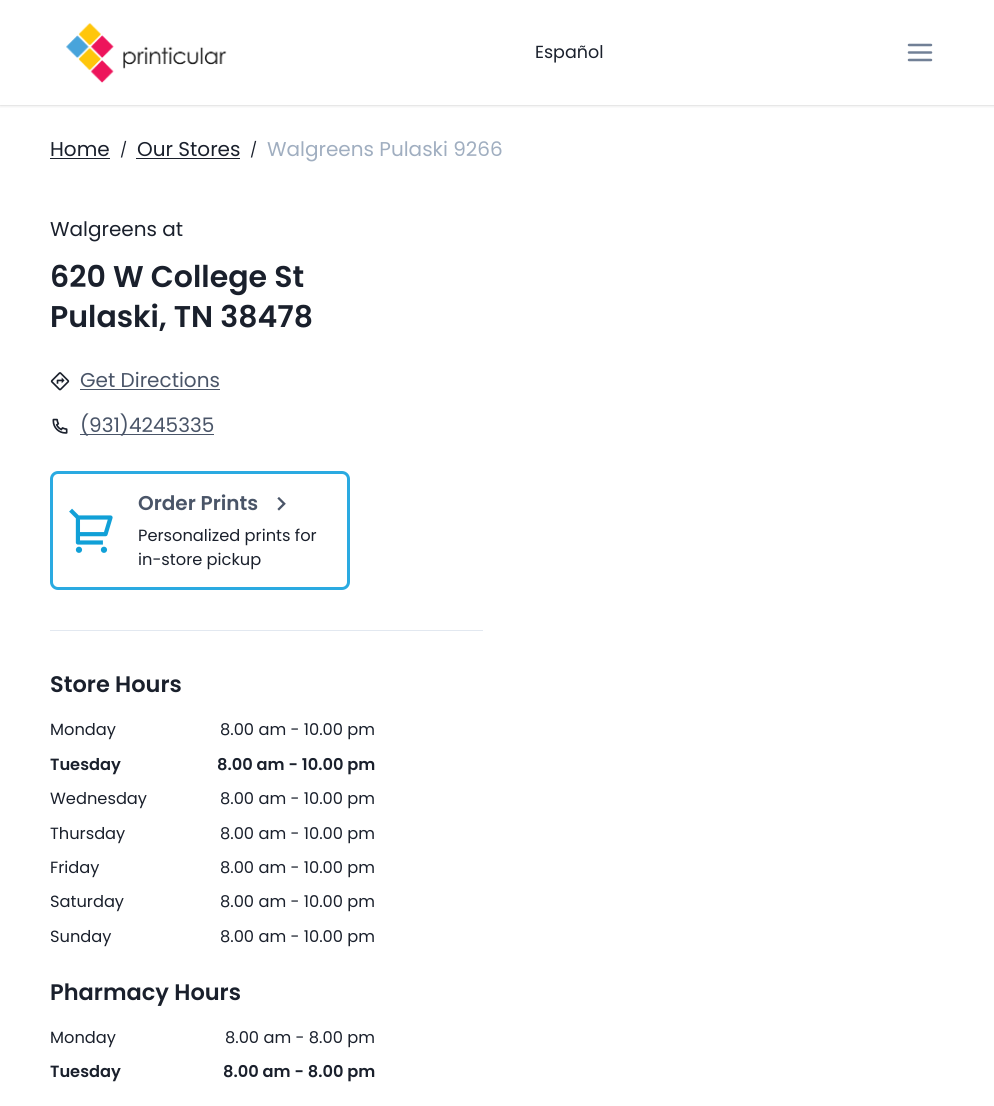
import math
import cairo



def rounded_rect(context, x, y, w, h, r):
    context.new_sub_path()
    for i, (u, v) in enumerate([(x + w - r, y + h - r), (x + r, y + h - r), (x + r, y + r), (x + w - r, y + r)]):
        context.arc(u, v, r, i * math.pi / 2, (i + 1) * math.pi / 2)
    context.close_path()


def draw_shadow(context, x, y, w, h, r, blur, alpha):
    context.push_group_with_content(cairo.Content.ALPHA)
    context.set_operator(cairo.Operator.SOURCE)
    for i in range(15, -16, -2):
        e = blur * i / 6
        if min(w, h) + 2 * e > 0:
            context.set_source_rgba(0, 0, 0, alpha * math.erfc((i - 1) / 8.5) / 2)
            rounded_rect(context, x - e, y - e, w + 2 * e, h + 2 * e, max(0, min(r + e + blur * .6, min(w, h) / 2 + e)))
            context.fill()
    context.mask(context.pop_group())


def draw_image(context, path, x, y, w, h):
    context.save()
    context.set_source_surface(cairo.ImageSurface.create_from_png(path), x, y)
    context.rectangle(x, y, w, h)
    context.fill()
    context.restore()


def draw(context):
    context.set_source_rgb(1, 1, 1)
    context.paint()
    context.save()
    context.rectangle(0, 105, 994, 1)
    context.clip()
    context.set_source_rgb(0, 0, 0)
    draw_shadow(context, 0, 1, 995, 105, 0, 1, 0.06)
    context.restore()
    context.save()
    context.rectangle(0, 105, 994, 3)
    context.clip()
    context.set_source_rgb(0, 0, 0)
    draw_shadow(context, 0, 1, 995, 105, 0, 2, 0.1)
    context.restore()
    draw_image(context, "images/1.png", 66, 23, 161, 60)
    context.new_path()
    context.move_to(909, 52.5)
    context.line_to(931, 52.5)
    context.move_to(909, 45)
    context.line_to(931, 45)
    context.move_to(909, 60)
    context.line_to(931, 60)
    context.set_source_rgb(113 / 255, 128 / 255, 150 / 255)
    context.set_line_width(2.5)
    context.set_line_cap(cairo.LineCap.ROUND)
    context.set_line_join(cairo.LineJoin.ROUND)
    context.stroke()
    context.set_source_rgb(26 / 255, 32 / 255, 44 / 255)
    context.rectangle(50, 158, 60, 1)
    context.fill()
    context.rectangle(136, 158, 104, 1)
    context.fill()
    draw_image(context, "images/2.png", 50, 372, 20, 19)
    context.set_source_rgb(74 / 255, 85 / 255, 104 / 255)
    context.rectangle(80, 389, 140, 1)
    context.fill()
    draw_image(context, "images/3.png", 52, 418, 16, 16)
    context.rectangle(80, 434, 134, 1)
    context.fill()
    rounded_rect(context, 51.5, 472.5, 297, 116, 6.5)
    context.set_source_rgb(42 / 255, 170 / 255, 225 / 255)
    context.set_line_width(3)
    context.set_line_cap(cairo.LineCap.BUTT)
    context.set_line_join(cairo.LineJoin.MITER)
    context.stroke()
    draw_image(context, "images/4.png", 69, 508, 44, 45)
    draw_image(context, "images/5.png", 277, 497, 9, 14)
    context.set_source_rgb(226 / 255, 232 / 255, 240 / 255)
    context.rectangle(50, 630, 433, 1)
    context.fill()
    context.select_font_face("Poppins")
    context.set_font_size(17.5)
    context.set_source_rgb(26 / 255, 32 / 255, 44 / 255)
    context.move_to(535, 58)
    context.show_text("Español")
    context.set_font_size(20)
    context.move_to(50, 156)
    context.show_text("Home")
    context.set_font_size(15)
    context.move_to(120, 155)
    context.show_text("/")
    context.set_font_size(20)
    context.move_to(137, 156)
    context.show_text("Our Stores")
    context.set_font_size(15)
    context.move_to(250, 155)
    context.show_text("/")
    context.set_font_size(20)
    context.set_source_rgb(160 / 255, 174 / 255, 192 / 255)
    context.move_to(267, 156)
    context.show_text("Walgreens Pulaski 9266")
    context.set_source_rgb(26 / 255, 32 / 255, 44 / 255)
    context.move_to(50, 236)
    context.show_text("Walgreens at")
    context.select_font_face("Poppins SemiBold")
    context.set_font_size(30)
    context.move_to(50, 287)
    context.show_text("620 W College St")
    context.move_to(50, 327)
    context.show_text("Pulaski, TN 38478")
    context.select_font_face("Poppins")
    context.set_font_size(20)
    context.set_source_rgb(74 / 255, 85 / 255, 104 / 255)
    context.move_to(80, 387)
    context.show_text("Get Directions")
    context.move_to(80, 432)
    context.show_text("(931)4245335")
    context.select_font_face("Poppins SemiBold")
    context.move_to(138, 510)
    context.show_text("Order Prints")
    context.select_font_face("Poppins")
    context.set_font_size(16.25)
    context.set_source_rgb(26 / 255, 32 / 255, 44 / 255)
    context.move_to(138, 541)
    context.show_text("Personalized prints for")
    context.move_to(138, 565)
    context.show_text("in-store pickup")
    context.select_font_face("Poppins SemiBold")
    context.set_font_size(22.5)
    context.move_to(50, 692)
    context.show_text("Store Hours")
    context.select_font_face("Poppins")
    context.set_font_size(16.25)
    context.move_to(50, 735)
    context.show_text("Monday")
    context.move_to(220, 735)
    context.show_text("8.00 am - 10.00 pm")
    context.select_font_face("Poppins SemiBold")
    context.move_to(50, 770)
    context.show_text("Tuesday")
    context.move_to(217, 770)
    context.show_text("8.00 am - 10.00 pm")
    context.select_font_face("Poppins")
    context.move_to(50, 804)
    context.show_text("Wednesday")
    context.move_to(220, 804)
    context.show_text("8.00 am - 10.00 pm")
    context.move_to(50, 839)
    context.show_text("Thursday")
    context.move_to(220, 839)
    context.show_text("8.00 am - 10.00 pm")
    context.move_to(50, 873)
    context.show_text("Friday")
    context.move_to(220, 873)
    context.show_text("8.00 am - 10.00 pm")
    context.move_to(50, 907)
    context.show_text("Saturday")
    context.move_to(220, 907)
    context.show_text("8.00 am - 10.00 pm")
    context.move_to(50, 942)
    context.show_text("Sunday")
    context.move_to(220, 942)
    context.show_text("8.00 am - 10.00 pm")
    context.select_font_face("Poppins SemiBold")
    context.set_font_size(22.5)
    context.move_to(50, 1000)
    context.show_text("Pharmacy Hours")
    context.select_font_face("Poppins")
    context.set_font_size(16.25)
    context.move_to(50, 1043)
    context.show_text("Monday")
    context.move_to(225, 1043)
    context.show_text("8.00 am - 8.00 pm")
    context.select_font_face("Poppins SemiBold")
    context.move_to(50, 1077)
    context.show_text("Tuesday")
    context.move_to(223, 1077)
    context.show_text("8.00 am - 8.00 pm")


surface = cairo.ImageSurface(cairo.Format.RGB24, 994, 1106)
context = cairo.Context(surface)
options = cairo.FontOptions()
options.set_hint_metrics(cairo.HintMetrics.OFF)
options.set_hint_style(cairo.HintStyle.NONE)
context.set_font_options(options)
context.set_miter_limit(4)
draw(context)
surface.write_to_png("out.png")
